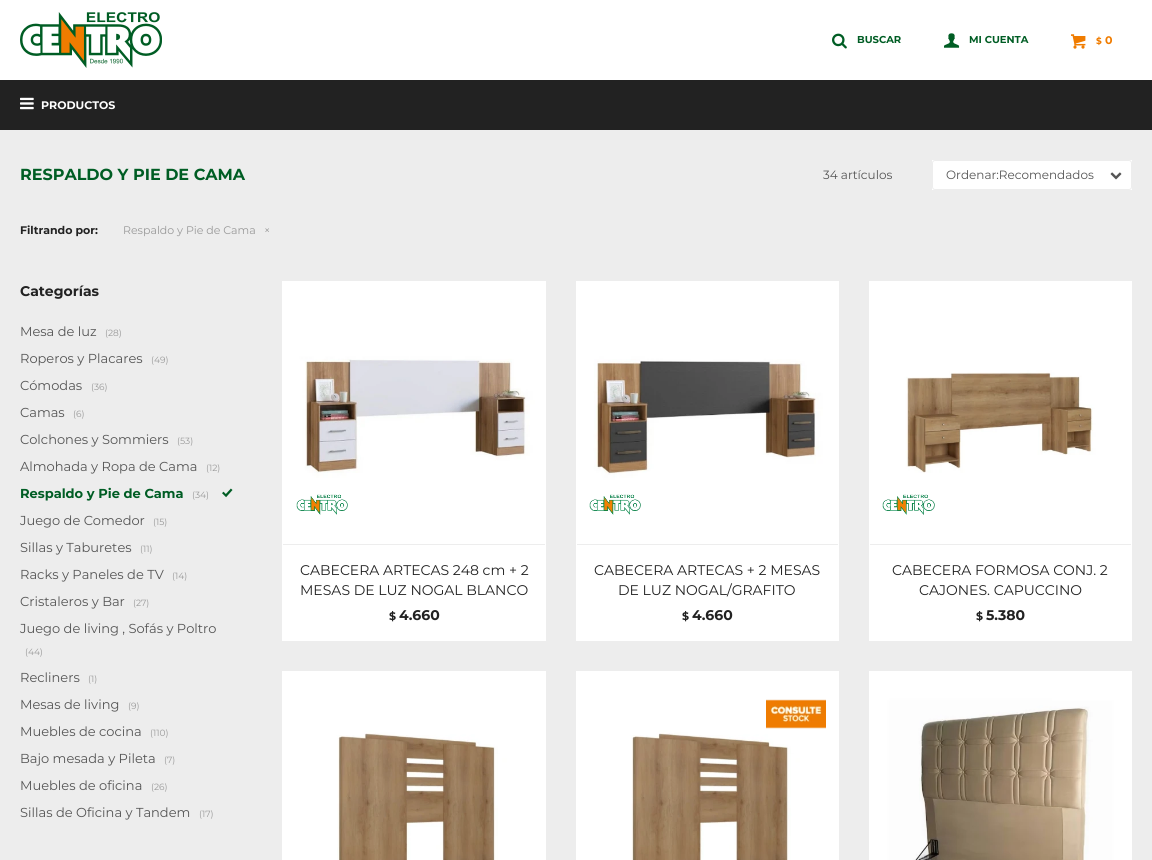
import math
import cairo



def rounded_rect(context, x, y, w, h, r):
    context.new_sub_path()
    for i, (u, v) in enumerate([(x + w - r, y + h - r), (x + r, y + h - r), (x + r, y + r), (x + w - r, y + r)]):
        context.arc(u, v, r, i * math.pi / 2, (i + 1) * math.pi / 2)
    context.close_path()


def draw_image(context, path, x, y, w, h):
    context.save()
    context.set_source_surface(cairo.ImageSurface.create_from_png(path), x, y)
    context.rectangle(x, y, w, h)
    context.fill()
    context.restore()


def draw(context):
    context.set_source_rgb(237 / 255, 237 / 255, 237 / 255)
    context.paint()
    context.set_source_rgb(1, 1, 1)
    context.rectangle(0, 0, 1152, 80)
    context.fill()
    context.set_source_rgb(34 / 255, 34 / 255, 34 / 255)
    context.rectangle(0, 80, 1152, 50)
    context.fill()
    draw_image(context, "images/1.png", 20, 12, 142, 56)
    draw_image(context, "images/2.png", 832, 33, 15, 16)
    draw_image(context, "images/3.png", 944, 33, 16, 15)
    draw_image(context, "images/4.png", 1071, 34, 15, 15)
    draw_image(context, "images/5.png", 20, 97, 14, 13)
    context.set_source_rgb(1, 1, 1)
    context.rectangle(932, 160, 200, 30)
    context.fill()
    draw_image(context, "images/6.png", 1110, 172, 12, 8)
    rounded_rect(context, 932.5, 160.5, 199, 29, 2.5)
    context.set_source_rgb(237 / 255, 237 / 255, 237 / 255)
    context.set_line_width(1)
    context.stroke()
    draw_image(context, "images/7.png", 222, 488, 11, 10)
    draw_image(context, "images/8.png", 283, 282, 262, 262)
    draw_image(context, "images/9.png", 296, 494, 52, 21)
    context.set_source_rgb(1, 1, 1)
    context.rectangle(283, 545, 262, 95)
    context.fill()
    context.rectangle(282.5, 281.5, 263, 359)
    context.stroke()
    draw_image(context, "images/10.png", 577, 282, 261, 262)
    draw_image(context, "images/11.png", 589, 494, 52, 21)
    context.rectangle(577, 545, 261, 95)
    context.fill()
    context.rectangle(576.5, 281.5, 262, 359)
    context.stroke()
    draw_image(context, "images/12.png", 870, 282, 261, 262)
    draw_image(context, "images/13.png", 882, 494, 53, 21)
    context.rectangle(870, 545, 261, 95)
    context.fill()
    context.rectangle(869.5, 281.5, 262, 359)
    context.stroke()
    draw_image(context, "images/14.png", 282, 671, 264, 189)
    draw_image(context, "images/15.png", 576, 671, 263, 189)
    draw_image(context, "images/16.png", 766, 699, 60, 30)
    draw_image(context, "images/17.png", 869, 671, 263, 189)
    context.select_font_face("Montserrat", cairo.FontSlant.NORMAL, cairo.FontWeight.BOLD)
    context.set_font_size(10)
    context.set_source_rgb(0, 93 / 255, 36 / 255)
    context.move_to(857, 43)
    context.show_text("BUSCAR")
    context.move_to(969, 43)
    context.show_text("MI CUENTA")
    context.set_font_size(9)
    context.set_source_rgb(240 / 255, 124 / 255, 0)
    context.move_to(1096, 44)
    context.show_text("$")
    context.set_font_size(11)
    context.move_to(1105, 44)
    context.show_text("0")
    context.set_source_rgb(1, 1, 1)
    context.move_to(41, 109)
    context.show_text("PRODUCTOS")
    context.set_font_size(16)
    context.set_source_rgb(0, 93 / 255, 36 / 255)
    context.move_to(20, 180)
    context.show_text("RESPALDO Y PIE DE CAMA")
    context.select_font_face("Montserrat")
    context.set_font_size(12)
    context.set_source_rgb(85 / 255, 85 / 255, 85 / 255)
    context.move_to(823, 179)
    context.show_text("34 artículos")
    context.move_to(946, 179)
    context.show_text("Ordenar:Recomendados")
    context.select_font_face("Montserrat", cairo.FontSlant.NORMAL, cairo.FontWeight.BOLD)
    context.set_font_size(11)
    context.set_source_rgb(34 / 255, 34 / 255, 34 / 255)
    context.move_to(20, 234)
    context.show_text("Filtrando por:")
    context.select_font_face("Montserrat")
    context.set_source_rgb(153 / 255, 153 / 255, 153 / 255)
    context.move_to(123, 234)
    context.show_text("Respaldo y Pie de Cama")
    context.move_to(264, 234)
    context.show_text("×")
    context.select_font_face("Montserrat", cairo.FontSlant.NORMAL, cairo.FontWeight.BOLD)
    context.set_font_size(14)
    context.set_source_rgb(34 / 255, 34 / 255, 34 / 255)
    context.move_to(20, 296)
    context.show_text("Categorías")
    context.select_font_face("Montserrat")
    context.set_font_size(13)
    context.set_source_rgb(85 / 255, 85 / 255, 85 / 255)
    context.move_to(20, 336)
    context.show_text("Mesa de luz")
    context.set_font_size(9)
    context.set_source_rgb(153 / 255, 153 / 255, 153 / 255)
    context.move_to(105, 336)
    context.show_text("(28)")
    context.set_font_size(13)
    context.set_source_rgb(85 / 255, 85 / 255, 85 / 255)
    context.move_to(20, 363)
    context.show_text("Roperos y Placares")
    context.set_font_size(9)
    context.set_source_rgb(153 / 255, 153 / 255, 153 / 255)
    context.move_to(151, 363)
    context.show_text("(49)")
    context.set_font_size(13)
    context.set_source_rgb(85 / 255, 85 / 255, 85 / 255)
    context.move_to(20, 390)
    context.show_text("Cómodas")
    context.set_font_size(9)
    context.set_source_rgb(153 / 255, 153 / 255, 153 / 255)
    context.move_to(91, 390)
    context.show_text("(36)")
    context.set_font_size(13)
    context.set_source_rgb(85 / 255, 85 / 255, 85 / 255)
    context.move_to(20, 417)
    context.show_text("Camas")
    context.set_font_size(9)
    context.set_source_rgb(153 / 255, 153 / 255, 153 / 255)
    context.move_to(73, 417)
    context.show_text("(6)")
    context.set_font_size(13)
    context.set_source_rgb(85 / 255, 85 / 255, 85 / 255)
    context.move_to(20, 444)
    context.show_text("Colchones y Sommiers")
    context.set_font_size(9)
    context.set_source_rgb(153 / 255, 153 / 255, 153 / 255)
    context.move_to(177, 444)
    context.show_text("(53)")
    context.set_font_size(13)
    context.set_source_rgb(85 / 255, 85 / 255, 85 / 255)
    context.move_to(20, 471)
    context.show_text("Almohada y Ropa de Cama")
    context.set_font_size(9)
    context.set_source_rgb(153 / 255, 153 / 255, 153 / 255)
    context.move_to(206, 471)
    context.show_text("(12)")
    context.select_font_face("Montserrat", cairo.FontSlant.NORMAL, cairo.FontWeight.BOLD)
    context.set_font_size(13)
    context.set_source_rgb(0, 93 / 255, 36 / 255)
    context.move_to(20, 498)
    context.show_text("Respaldo y Pie de Cama")
    context.select_font_face("Montserrat")
    context.set_font_size(9)
    context.set_source_rgb(153 / 255, 153 / 255, 153 / 255)
    context.move_to(192, 498)
    context.show_text("(34)")
    context.set_font_size(13)
    context.set_source_rgb(85 / 255, 85 / 255, 85 / 255)
    context.move_to(20, 525)
    context.show_text("Juego de Comedor")
    context.set_font_size(9)
    context.set_source_rgb(153 / 255, 153 / 255, 153 / 255)
    context.move_to(153, 525)
    context.show_text("(15)")
    context.set_font_size(13)
    context.set_source_rgb(85 / 255, 85 / 255, 85 / 255)
    context.move_to(20, 552)
    context.show_text("Sillas y Taburetes")
    context.set_font_size(9)
    context.set_source_rgb(153 / 255, 153 / 255, 153 / 255)
    context.move_to(140, 552)
    context.show_text("(11)")
    context.set_font_size(13)
    context.set_source_rgb(85 / 255, 85 / 255, 85 / 255)
    context.move_to(20, 579)
    context.show_text("Racks y Paneles de TV")
    context.set_font_size(9)
    context.set_source_rgb(153 / 255, 153 / 255, 153 / 255)
    context.move_to(172, 579)
    context.show_text("(14)")
    context.set_font_size(13)
    context.set_source_rgb(85 / 255, 85 / 255, 85 / 255)
    context.move_to(20, 606)
    context.show_text("Cristaleros y Bar")
    context.set_font_size(9)
    context.set_source_rgb(153 / 255, 153 / 255, 153 / 255)
    context.move_to(133, 606)
    context.show_text("(27)")
    context.set_font_size(13)
    context.set_source_rgb(85 / 255, 85 / 255, 85 / 255)
    context.move_to(20, 633)
    context.show_text("Juego de living , Sofás y Poltro")
    context.set_font_size(9)
    context.set_source_rgb(153 / 255, 153 / 255, 153 / 255)
    context.move_to(25, 655)
    context.show_text("(44)")
    context.set_font_size(13)
    context.set_source_rgb(85 / 255, 85 / 255, 85 / 255)
    context.move_to(20, 682)
    context.show_text("Recliners")
    context.set_font_size(9)
    context.set_source_rgb(153 / 255, 153 / 255, 153 / 255)
    context.move_to(88, 682)
    context.show_text("(1)")
    context.set_font_size(13)
    context.set_source_rgb(85 / 255, 85 / 255, 85 / 255)
    context.move_to(20, 709)
    context.show_text("Mesas de living")
    context.set_font_size(9)
    context.set_source_rgb(153 / 255, 153 / 255, 153 / 255)
    context.move_to(128, 709)
    context.show_text("(9)")
    context.set_font_size(13)
    context.set_source_rgb(85 / 255, 85 / 255, 85 / 255)
    context.move_to(20, 736)
    context.show_text("Muebles de cocina")
    context.set_font_size(9)
    context.set_source_rgb(153 / 255, 153 / 255, 153 / 255)
    context.move_to(150, 736)
    context.show_text("(110)")
    context.set_font_size(13)
    context.set_source_rgb(85 / 255, 85 / 255, 85 / 255)
    context.move_to(20, 763)
    context.show_text("Bajo mesada y Pileta")
    context.set_font_size(9)
    context.set_source_rgb(153 / 255, 153 / 255, 153 / 255)
    context.move_to(164, 763)
    context.show_text("(7)")
    context.set_font_size(13)
    context.set_source_rgb(85 / 255, 85 / 255, 85 / 255)
    context.move_to(20, 790)
    context.show_text("Muebles de oficina")
    context.set_font_size(9)
    context.set_source_rgb(153 / 255, 153 / 255, 153 / 255)
    context.move_to(151, 790)
    context.show_text("(26)")
    context.set_font_size(13)
    context.set_source_rgb(85 / 255, 85 / 255, 85 / 255)
    context.move_to(20, 817)
    context.show_text("Sillas de Oficina y Tandem")
    context.set_font_size(9)
    context.set_source_rgb(153 / 255, 153 / 255, 153 / 255)
    context.move_to(199, 817)
    context.show_text("(17)")
    context.set_font_size(14)
    context.set_source_rgb(34 / 255, 34 / 255, 34 / 255)
    context.move_to(300, 575)
    context.show_text("CABECERA ARTECAS 248 cm + 2")
    context.move_to(300, 595)
    context.show_text("MESAS DE LUZ NOGAL BLANCO")
    context.select_font_face("Montserrat", cairo.FontSlant.NORMAL, cairo.FontWeight.BOLD)
    context.set_font_size(11)
    context.move_to(389, 620)
    context.show_text("$")
    context.set_font_size(14)
    context.move_to(399, 620)
    context.show_text("4.660")
    context.select_font_face("Montserrat")
    context.move_to(594, 575)
    context.show_text("CABECERA ARTECAS + 2 MESAS")
    context.move_to(618, 595)
    context.show_text("DE LUZ NOGAL/GRAFITO")
    context.select_font_face("Montserrat", cairo.FontSlant.NORMAL, cairo.FontWeight.BOLD)
    context.set_font_size(11)
    context.move_to(682, 620)
    context.show_text("$")
    context.set_font_size(14)
    context.move_to(692, 620)
    context.show_text("4.660")
    context.select_font_face("Montserrat")
    context.move_to(892, 575)
    context.show_text("CABECERA FORMOSA CONJ. 2")
    context.move_to(919, 595)
    context.show_text("CAJONES. CAPUCCINO")
    context.select_font_face("Montserrat", cairo.FontSlant.NORMAL, cairo.FontWeight.BOLD)
    context.set_font_size(11)
    context.move_to(976, 620)
    context.show_text("$")
    context.set_font_size(14)
    context.move_to(986, 620)
    context.show_text("5.380")


surface = cairo.ImageSurface(cairo.Format.RGB24, 1152, 860)
context = cairo.Context(surface)
options = cairo.FontOptions()
options.set_hint_metrics(cairo.HintMetrics.OFF)
options.set_hint_style(cairo.HintStyle.NONE)
context.set_font_options(options)
context.set_miter_limit(4)
draw(context)
surface.write_to_png("out.png")
